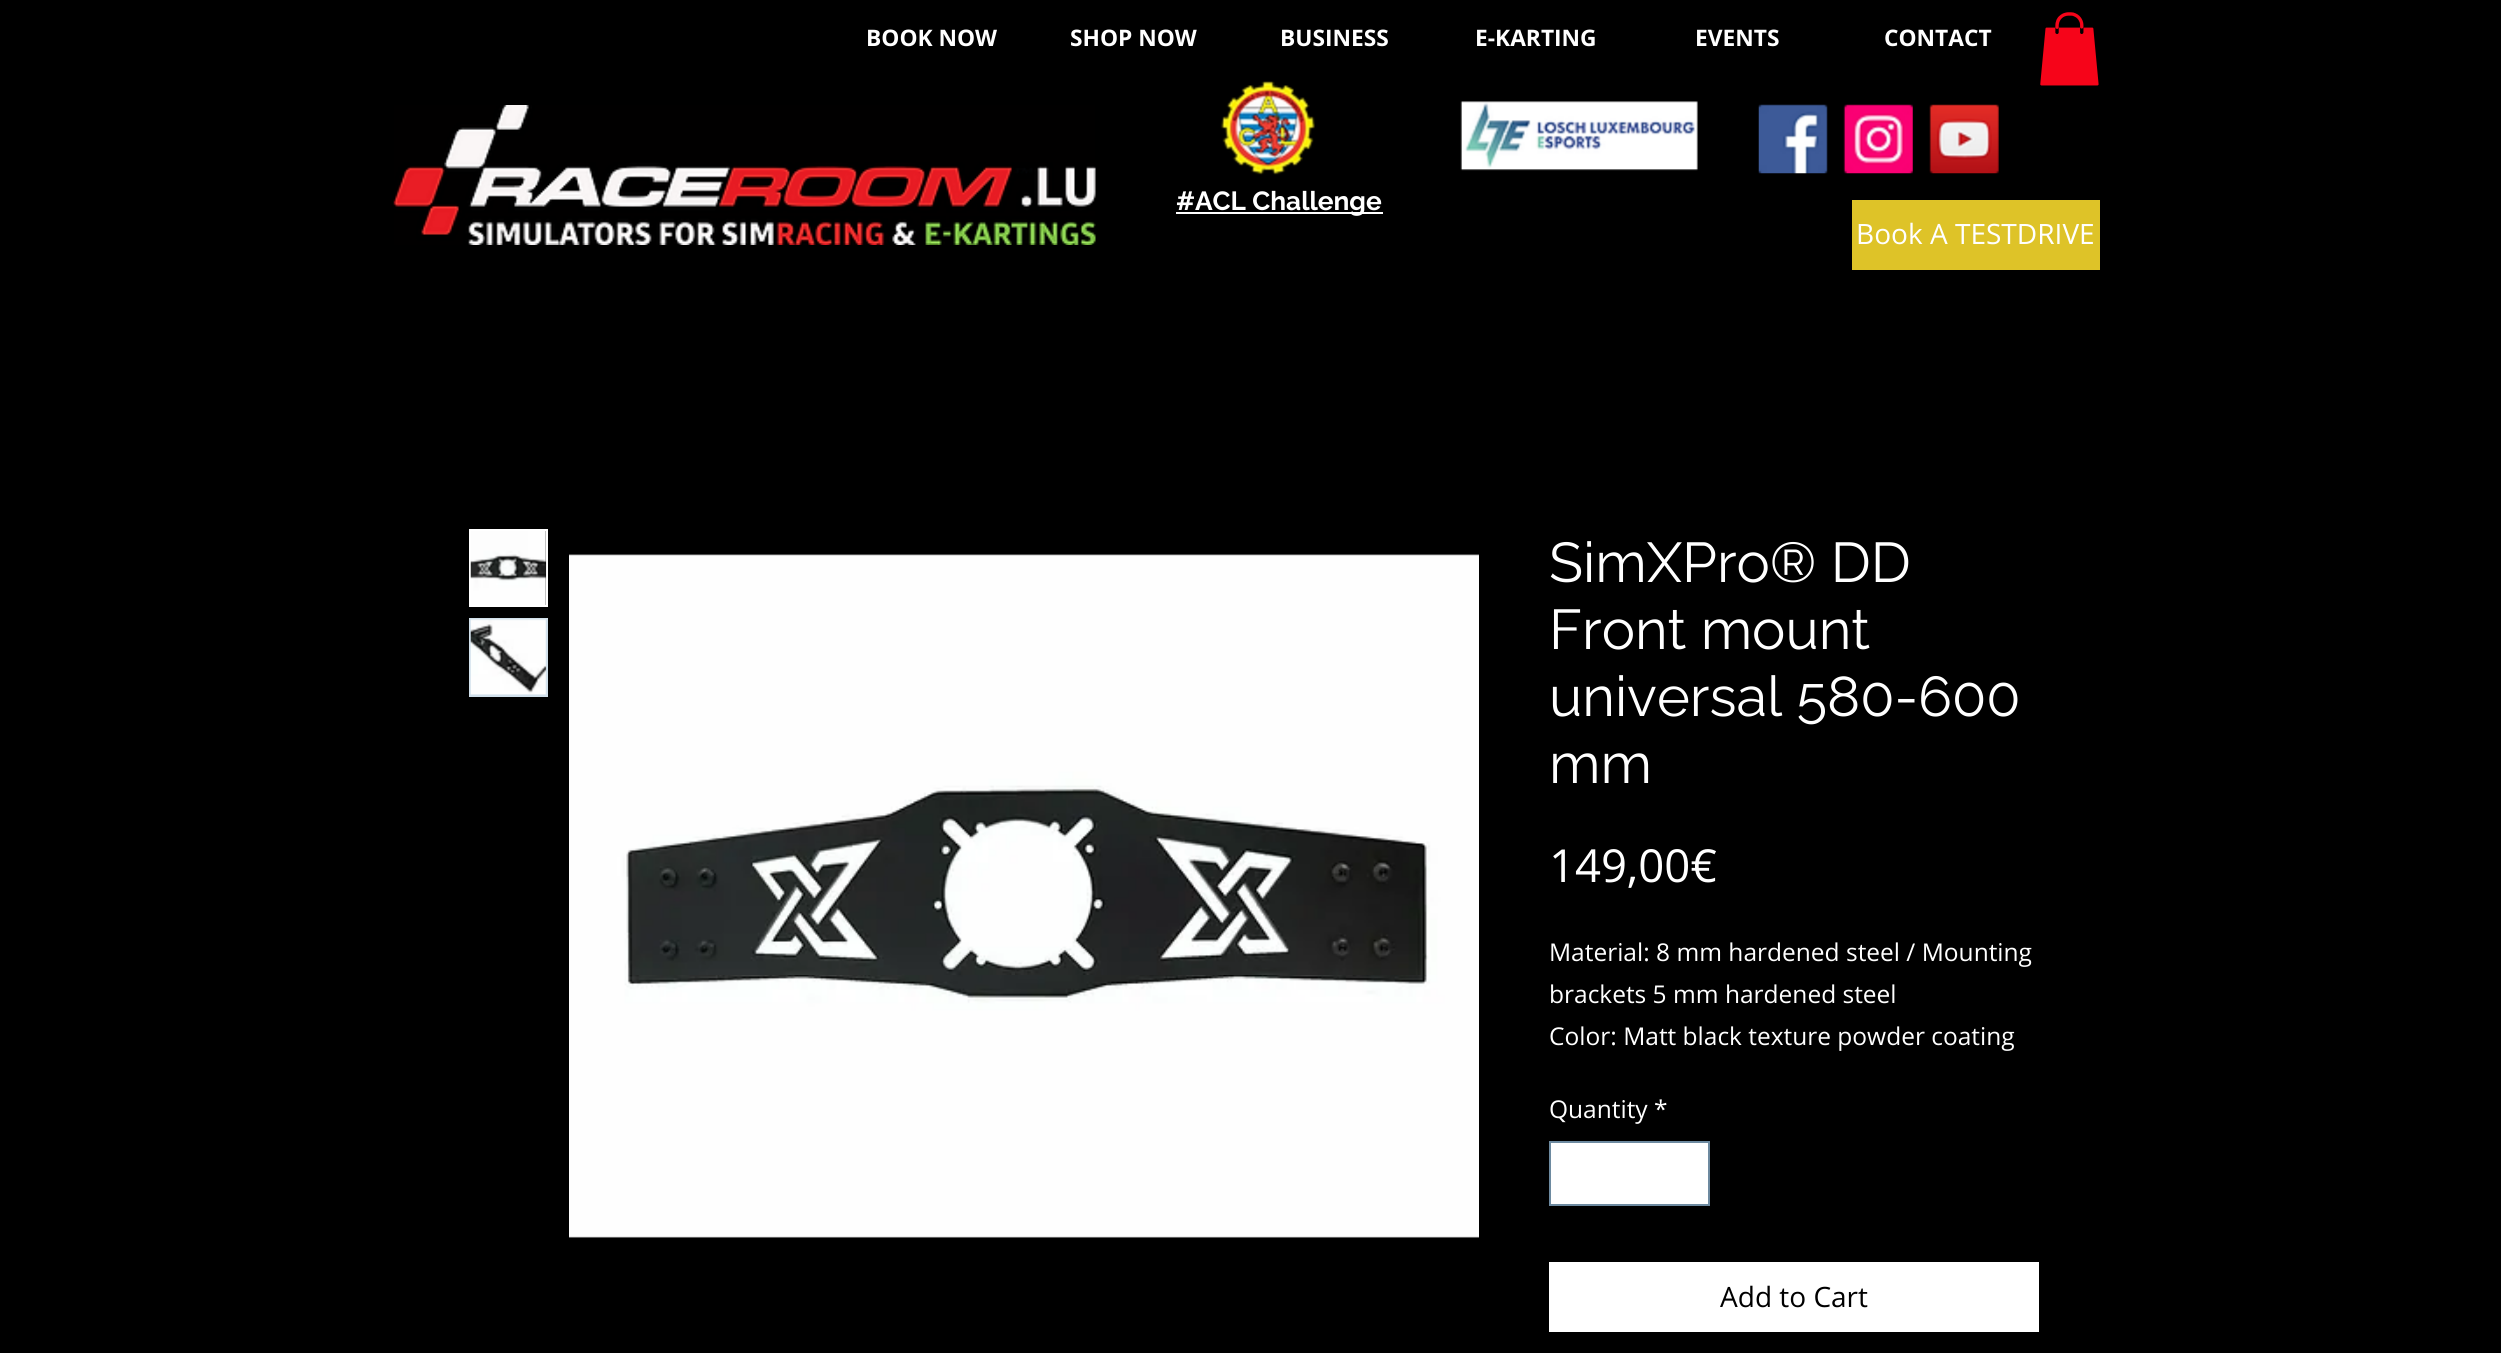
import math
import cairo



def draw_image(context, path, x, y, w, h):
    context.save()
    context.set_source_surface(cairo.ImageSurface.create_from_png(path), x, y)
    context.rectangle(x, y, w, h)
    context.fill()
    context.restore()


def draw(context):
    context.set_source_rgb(0, 0, 0)
    context.paint()
    draw_image(context, "images/1.png", 2040, 12, 59, 74)
    draw_image(context, "images/2.png", 393, 105, 703, 140)
    draw_image(context, "images/3.png", 1220, 81, 95, 94)
    draw_image(context, "images/4.png", 1460, 101, 238, 70)
    draw_image(context, "images/5.png", 1758, 104, 70, 70)
    draw_image(context, "images/6.png", 1843, 104, 70, 70)
    draw_image(context, "images/7.png", 1929, 104, 70, 70)
    context.set_source_rgb(1, 1, 1)
    context.rectangle(1176, 212, 207, 2)
    context.fill()
    context.set_source_rgb(222 / 255, 195 / 255, 40 / 255)
    context.rectangle(1852, 200, 248, 70)
    context.fill()
    context.rectangle(470, 530, 77, 76)
    context.set_source_rgb(1, 1, 1)
    context.stroke()
    draw_image(context, "images/8.png", 470, 531, 77, 74)
    context.set_source_rgb(209 / 255, 224 / 255, 235 / 255)
    context.rectangle(469, 618, 79, 79)
    context.fill()
    draw_image(context, "images/9.png", 470, 619, 77, 76)
    draw_image(context, "images/10.png", 569, 554, 910, 684)
    context.set_source_rgb(1, 1, 1)
    context.rectangle(1550, 1142, 159, 63)
    context.fill_preserve()
    context.set_source_rgb(109 / 255, 138 / 255, 160 / 255)
    context.stroke()
    context.set_source_rgb(1, 1, 1)
    context.rectangle(1549, 1262, 490, 70)
    context.fill()
    context.select_font_face("Open Sans", cairo.FontSlant.NORMAL, cairo.FontWeight.BOLD)
    context.set_font_size(22.75)
    context.move_to(866, 46)
    context.show_text("BOOK NOW")
    context.move_to(1070, 46)
    context.show_text("SHOP NOW")
    context.move_to(1280, 46)
    context.show_text("BUSINESS")
    context.move_to(1475, 46)
    context.show_text("E-KARTING")
    context.move_to(1695, 46)
    context.show_text("EVENTS")
    context.move_to(1884, 46)
    context.show_text("CONTACT")
    context.select_font_face("Raleway", cairo.FontSlant.NORMAL, cairo.FontWeight.BOLD)
    context.set_font_size(26.25)
    context.move_to(1176, 210)
    context.show_text("#ACL Challenge")
    context.select_font_face("Open Sans")
    context.set_font_size(28)
    context.move_to(1856, 244)
    context.show_text("Book A TESTDRIVE")
    context.select_font_face("Raleway")
    context.set_font_size(56)
    context.move_to(1549, 582)
    context.show_text("SimXPro® DD")
    context.move_to(1549, 649)
    context.show_text("Front mount")
    context.move_to(1549, 716)
    context.show_text("universal 580-600")
    context.move_to(1549, 783)
    context.show_text("mm")
    context.select_font_face("Open Sans")
    context.set_font_size(45.5)
    context.move_to(1549, 882)
    context.show_text("149,00€")
    context.set_font_size(24.5)
    context.move_to(1549, 961)
    context.show_text("Material: 8 mm hardened steel / Mounting")
    context.move_to(1549, 1003)
    context.show_text("brackets 5 mm hardened steel")
    context.move_to(1549, 1045)
    context.show_text("Color: Matt black texture powder coating")
    context.move_to(1549, 1118)
    context.show_text("Quantity")
    context.move_to(1654, 1118)
    context.show_text("*")
    context.set_font_size(28)
    context.set_source_rgb(0, 0, 0)
    context.move_to(1720, 1307)
    context.show_text("Add to Cart")


surface = cairo.ImageSurface(cairo.Format.RGB24, 2501, 1353)
context = cairo.Context(surface)
options = cairo.FontOptions()
options.set_hint_metrics(cairo.HintMetrics.OFF)
options.set_hint_style(cairo.HintStyle.NONE)
context.set_font_options(options)
context.set_miter_limit(4)
draw(context)
surface.write_to_png("out.png")
